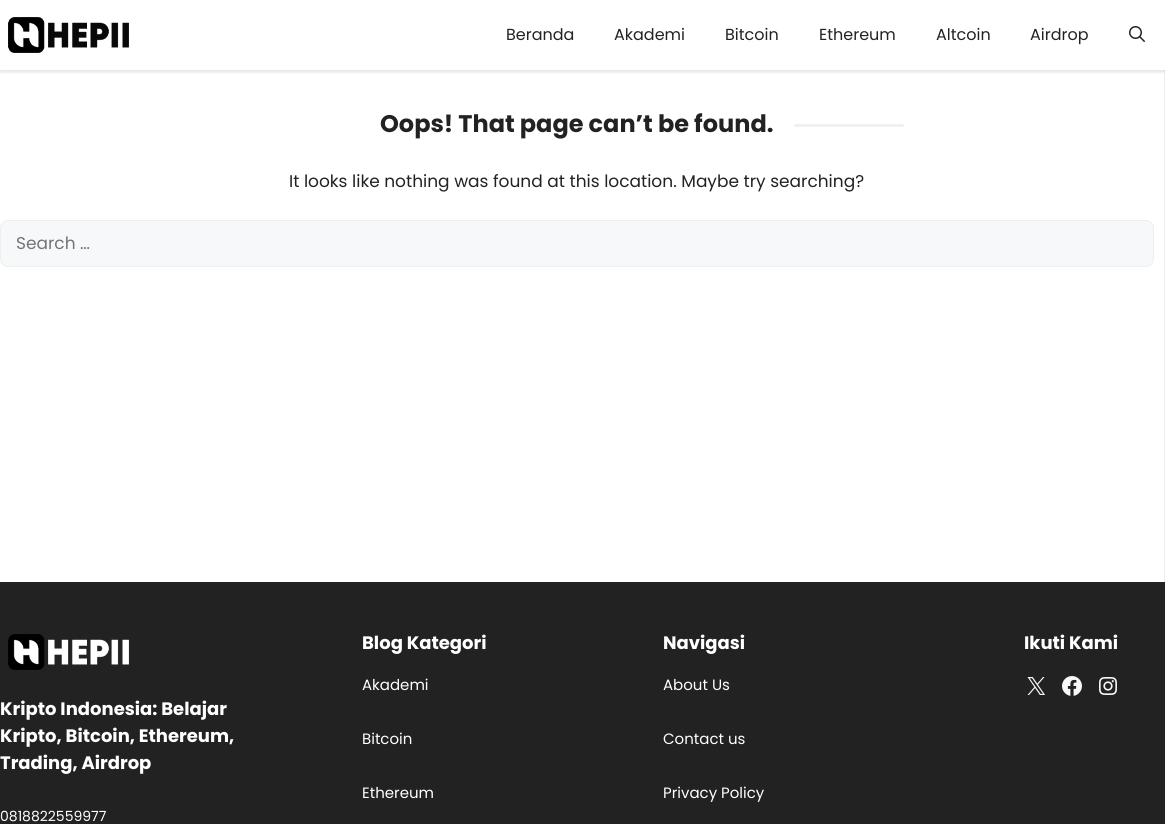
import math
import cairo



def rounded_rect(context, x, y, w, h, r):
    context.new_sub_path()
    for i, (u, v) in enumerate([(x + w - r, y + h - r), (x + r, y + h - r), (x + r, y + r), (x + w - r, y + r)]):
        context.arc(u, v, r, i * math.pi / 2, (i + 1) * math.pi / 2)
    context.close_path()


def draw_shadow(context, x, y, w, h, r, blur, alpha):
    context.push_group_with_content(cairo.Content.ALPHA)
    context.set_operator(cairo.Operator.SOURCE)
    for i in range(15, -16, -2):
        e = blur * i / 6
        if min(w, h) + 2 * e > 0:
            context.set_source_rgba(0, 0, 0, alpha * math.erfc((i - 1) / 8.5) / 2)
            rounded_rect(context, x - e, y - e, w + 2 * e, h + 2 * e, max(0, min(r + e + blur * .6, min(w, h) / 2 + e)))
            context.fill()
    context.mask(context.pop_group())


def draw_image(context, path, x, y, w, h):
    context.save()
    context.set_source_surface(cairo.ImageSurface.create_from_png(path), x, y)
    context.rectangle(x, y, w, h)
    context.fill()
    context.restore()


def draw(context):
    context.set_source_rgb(1, 1, 1)
    context.paint()
    context.set_source_rgb(238 / 255, 238 / 255, 238 / 255)
    context.rectangle(1164, 70, 1, 512)
    context.fill()
    context.save()
    context.rectangle(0, 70, 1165, 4)
    context.clip()
    context.set_source_rgb(0, 0, 0)
    draw_shadow(context, 0, 2, 1165, 70, 0, 2, 0.12)
    context.restore()
    draw_image(context, "images/1.png", 8, 17, 121, 36)
    draw_image(context, "images/2.png", 1129, 26, 16, 16)
    context.set_source_rgb(241 / 255, 241 / 255, 241 / 255)
    rounded_rect(context, 794, 124, 110, 3, 1.5)
    context.fill()
    context.set_source_rgb(247 / 255, 248 / 255, 249 / 255)
    rounded_rect(context, 0.5, 220.5, 1153, 46, 7.5)
    context.fill_preserve()
    context.set_source_rgb(238 / 255, 238 / 255, 238 / 255)
    context.set_line_width(1)
    context.stroke()
    context.set_source_rgb(34 / 255, 34 / 255, 34 / 255)
    context.rectangle(0, 582, 1165, 242)
    context.fill()
    draw_image(context, "images/3.png", 1027, 677, 18, 18)
    draw_image(context, "images/4.png", 1062, 676, 20, 20)
    draw_image(context, "images/5.png", 1099, 677, 18, 18)
    draw_image(context, "images/6.png", 8, 634, 121, 36)
    context.select_font_face("Poppins")
    context.set_font_size(16)
    context.move_to(506, 40)
    context.show_text("Beranda")
    context.move_to(614, 40)
    context.show_text("Akademi")
    context.move_to(725, 40)
    context.show_text("Bitcoin")
    context.move_to(819, 40)
    context.show_text("Ethereum")
    context.move_to(936, 40)
    context.show_text("Altcoin")
    context.move_to(1030, 40)
    context.show_text("Airdrop")
    context.select_font_face("Poppins", cairo.FontSlant.NORMAL, cairo.FontWeight.BOLD)
    context.set_font_size(24)
    context.move_to(380, 132)
    context.show_text("Oops! That page can’t be found.")
    context.select_font_face("Poppins")
    context.set_font_size(17)
    context.move_to(289, 187)
    context.show_text("It looks like nothing was found at this location. Maybe try searching?")
    context.set_source_rgb(117 / 255, 117 / 255, 117 / 255)
    context.move_to(16, 249)
    context.show_text("Search …")
    context.select_font_face("Poppins", cairo.FontSlant.NORMAL, cairo.FontWeight.BOLD)
    context.set_font_size(18)
    context.set_source_rgb(1, 1, 1)
    context.move_to(362, 649)
    context.show_text("Blog Kategori")
    context.select_font_face("Poppins")
    context.set_font_size(15)
    context.move_to(362, 690)
    context.show_text("Akademi")
    context.move_to(362, 744)
    context.show_text("Bitcoin")
    context.move_to(362, 798)
    context.show_text("Ethereum")
    context.select_font_face("Poppins", cairo.FontSlant.NORMAL, cairo.FontWeight.BOLD)
    context.set_font_size(18)
    context.move_to(663, 649)
    context.show_text("Navigasi")
    context.select_font_face("Poppins")
    context.set_font_size(15)
    context.move_to(663, 690)
    context.show_text("About Us")
    context.move_to(663, 744)
    context.show_text("Contact us")
    context.move_to(663, 798)
    context.show_text("Privacy Policy")
    context.select_font_face("Poppins", cairo.FontSlant.NORMAL, cairo.FontWeight.BOLD)
    context.set_font_size(18)
    context.move_to(1024, 649)
    context.show_text("Ikuti Kami")
    context.move_to(0, 715)
    context.show_text("Kripto Indonesia: Belajar")
    context.move_to(0, 742)
    context.show_text("Kripto, Bitcoin, Ethereum,")
    context.move_to(0, 769)
    context.show_text("Trading, Airdrop")
    context.select_font_face("Poppins")
    context.set_font_size(14)
    context.move_to(0, 821)
    context.show_text("0818822559977")


surface = cairo.ImageSurface(cairo.Format.RGB24, 1165, 824)
context = cairo.Context(surface)
options = cairo.FontOptions()
options.set_hint_metrics(cairo.HintMetrics.OFF)
options.set_hint_style(cairo.HintStyle.NONE)
context.set_font_options(options)
context.set_miter_limit(4)
draw(context)
surface.write_to_png("out.png")
